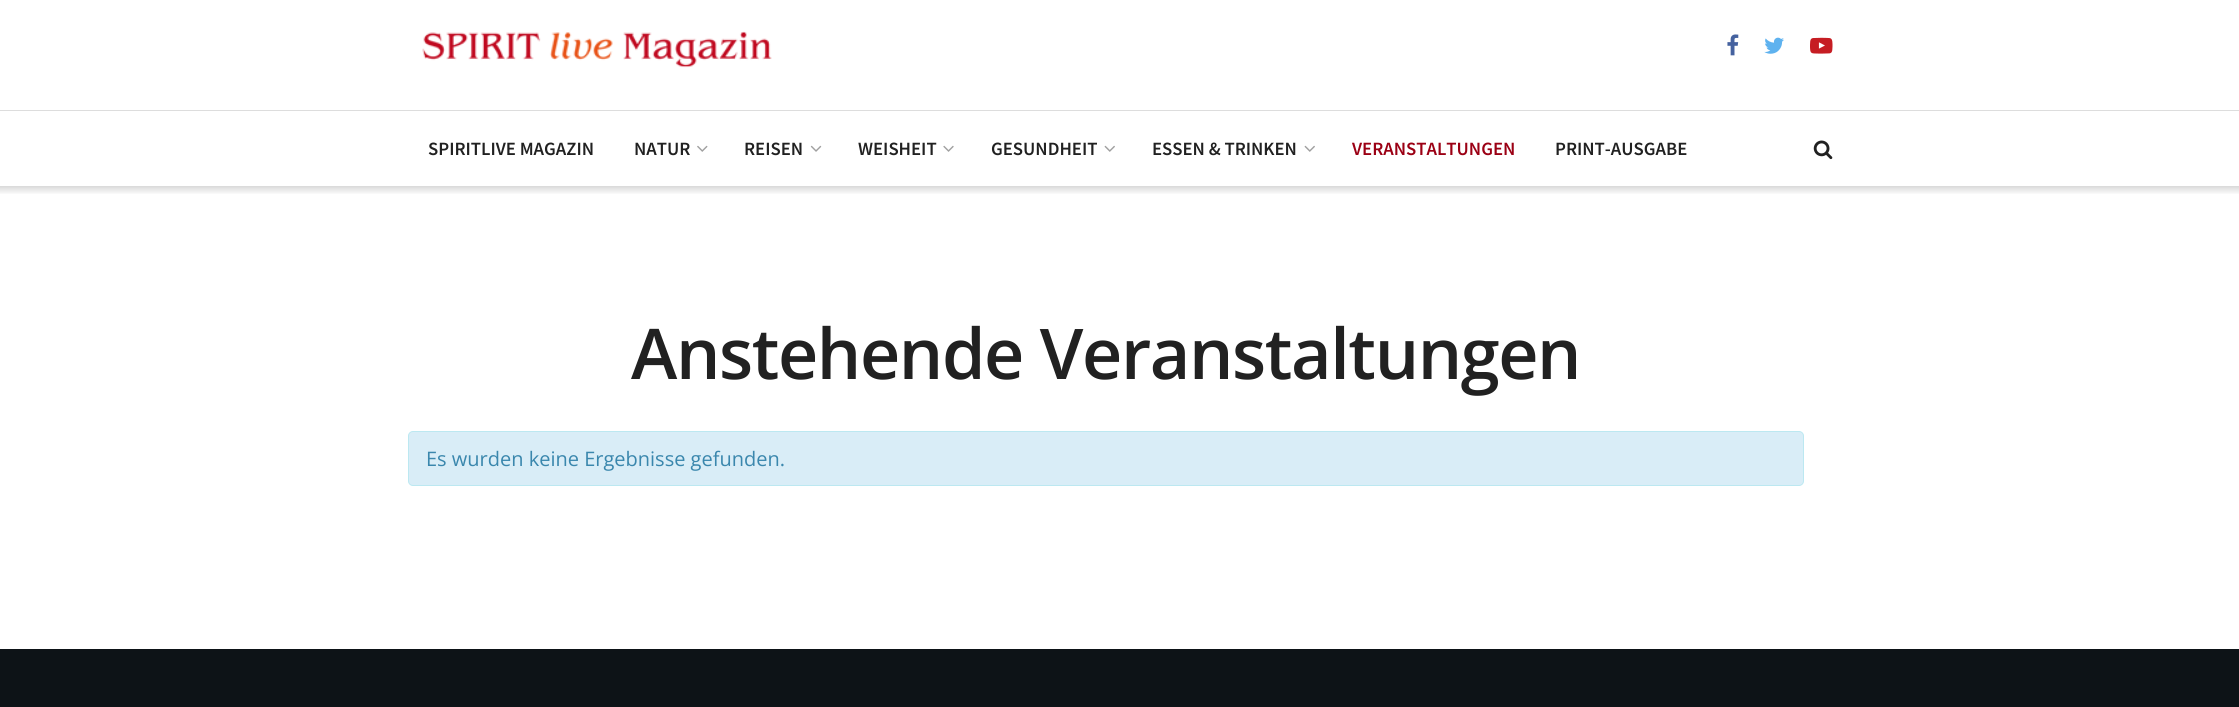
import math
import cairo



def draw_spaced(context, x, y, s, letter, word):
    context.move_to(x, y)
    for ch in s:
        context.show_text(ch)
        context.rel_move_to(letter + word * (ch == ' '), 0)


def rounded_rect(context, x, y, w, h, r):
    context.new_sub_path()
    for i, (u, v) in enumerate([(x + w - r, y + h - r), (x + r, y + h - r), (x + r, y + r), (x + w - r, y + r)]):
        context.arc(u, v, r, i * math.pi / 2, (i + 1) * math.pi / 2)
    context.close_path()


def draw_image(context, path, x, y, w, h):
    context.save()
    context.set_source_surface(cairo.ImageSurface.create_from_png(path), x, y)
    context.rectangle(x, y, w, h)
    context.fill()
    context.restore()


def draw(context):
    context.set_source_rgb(1, 1, 1)
    context.paint()
    draw_image(context, "images/1.png", 422, 31, 350, 37)
    draw_image(context, "images/2.png", 1727, 34, 12, 22)
    draw_image(context, "images/3.png", 1764, 37, 20, 17)
    draw_image(context, "images/4.png", 1810, 37, 23, 17)
    context.set_source_rgb(221 / 255, 221 / 255, 221 / 255)
    context.rectangle(0, 110, 2239, 1)
    context.fill()
    draw_image(context, "images/5.png", 697, 145, 11, 7)
    draw_image(context, "images/6.png", 810, 145, 12, 7)
    draw_image(context, "images/7.png", 943, 145, 11, 7)
    draw_image(context, "images/8.png", 1104, 145, 11, 7)
    draw_image(context, "images/8.png", 1304, 145, 11, 7)
    draw_image(context, "images/9.png", 1813, 140, 20, 20)
    gradient = cairo.LinearGradient(1120, 186, 1120, 195)
    gradient.add_color_stop_rgba(0, 217 / 255, 217 / 255, 217 / 255, 1)
    gradient.add_color_stop_rgba(1, 1, 1, 1, 1)
    context.set_source(gradient)
    context.rectangle(0, 186, 2239, 8)
    context.fill()
    context.set_source_rgb(217 / 255, 237 / 255, 247 / 255)
    rounded_rect(context, 408.5, 431.5, 1395, 54, 4.5)
    context.fill_preserve()
    context.set_source_rgb(188 / 255, 232 / 255, 241 / 255)
    context.set_line_width(1)
    context.stroke()
    context.set_source_rgb(13 / 255, 19 / 255, 23 / 255)
    context.rectangle(0, 649, 2239, 58)
    context.fill()
    context.select_font_face("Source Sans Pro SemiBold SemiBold")
    context.set_font_size(18.75)
    context.set_source_rgb(33 / 255, 33 / 255, 33 / 255)
    context.move_to(428, 155)
    context.show_text("SPIRITLIVE MAGAZIN")
    context.move_to(634, 155)
    context.show_text("NATUR")
    context.move_to(744, 155)
    context.show_text("REISEN")
    context.move_to(858, 155)
    context.show_text("WEISHEIT")
    context.move_to(991, 155)
    context.show_text("GESUNDHEIT")
    context.move_to(1152, 155)
    context.show_text("ESSEN & TRINKEN")
    context.set_source_rgb(155 / 255, 0, 20 / 255)
    context.move_to(1352, 155)
    context.show_text("VERANSTALTUNGEN")
    context.set_source_rgb(33 / 255, 33 / 255, 33 / 255)
    context.move_to(1555, 155)
    context.show_text("PRINT-AUSGABE")
    context.select_font_face("Open Sans SemiBold")
    context.set_font_size(70)
    draw_spaced(context, 631, 379, "Anstehende Veranstaltungen", -1.4, 0)
    context.select_font_face("Open Sans")
    context.set_font_size(20)
    context.set_source_rgb(58 / 255, 135 / 255, 173 / 255)
    context.move_to(426, 466)
    context.show_text("Es wurden keine Ergebnisse gefunden.")


surface = cairo.ImageSurface(cairo.Format.RGB24, 2239, 707)
context = cairo.Context(surface)
options = cairo.FontOptions()
options.set_hint_metrics(cairo.HintMetrics.OFF)
options.set_hint_style(cairo.HintStyle.NONE)
context.set_font_options(options)
context.set_miter_limit(4)
draw(context)
surface.write_to_png("out.png")
